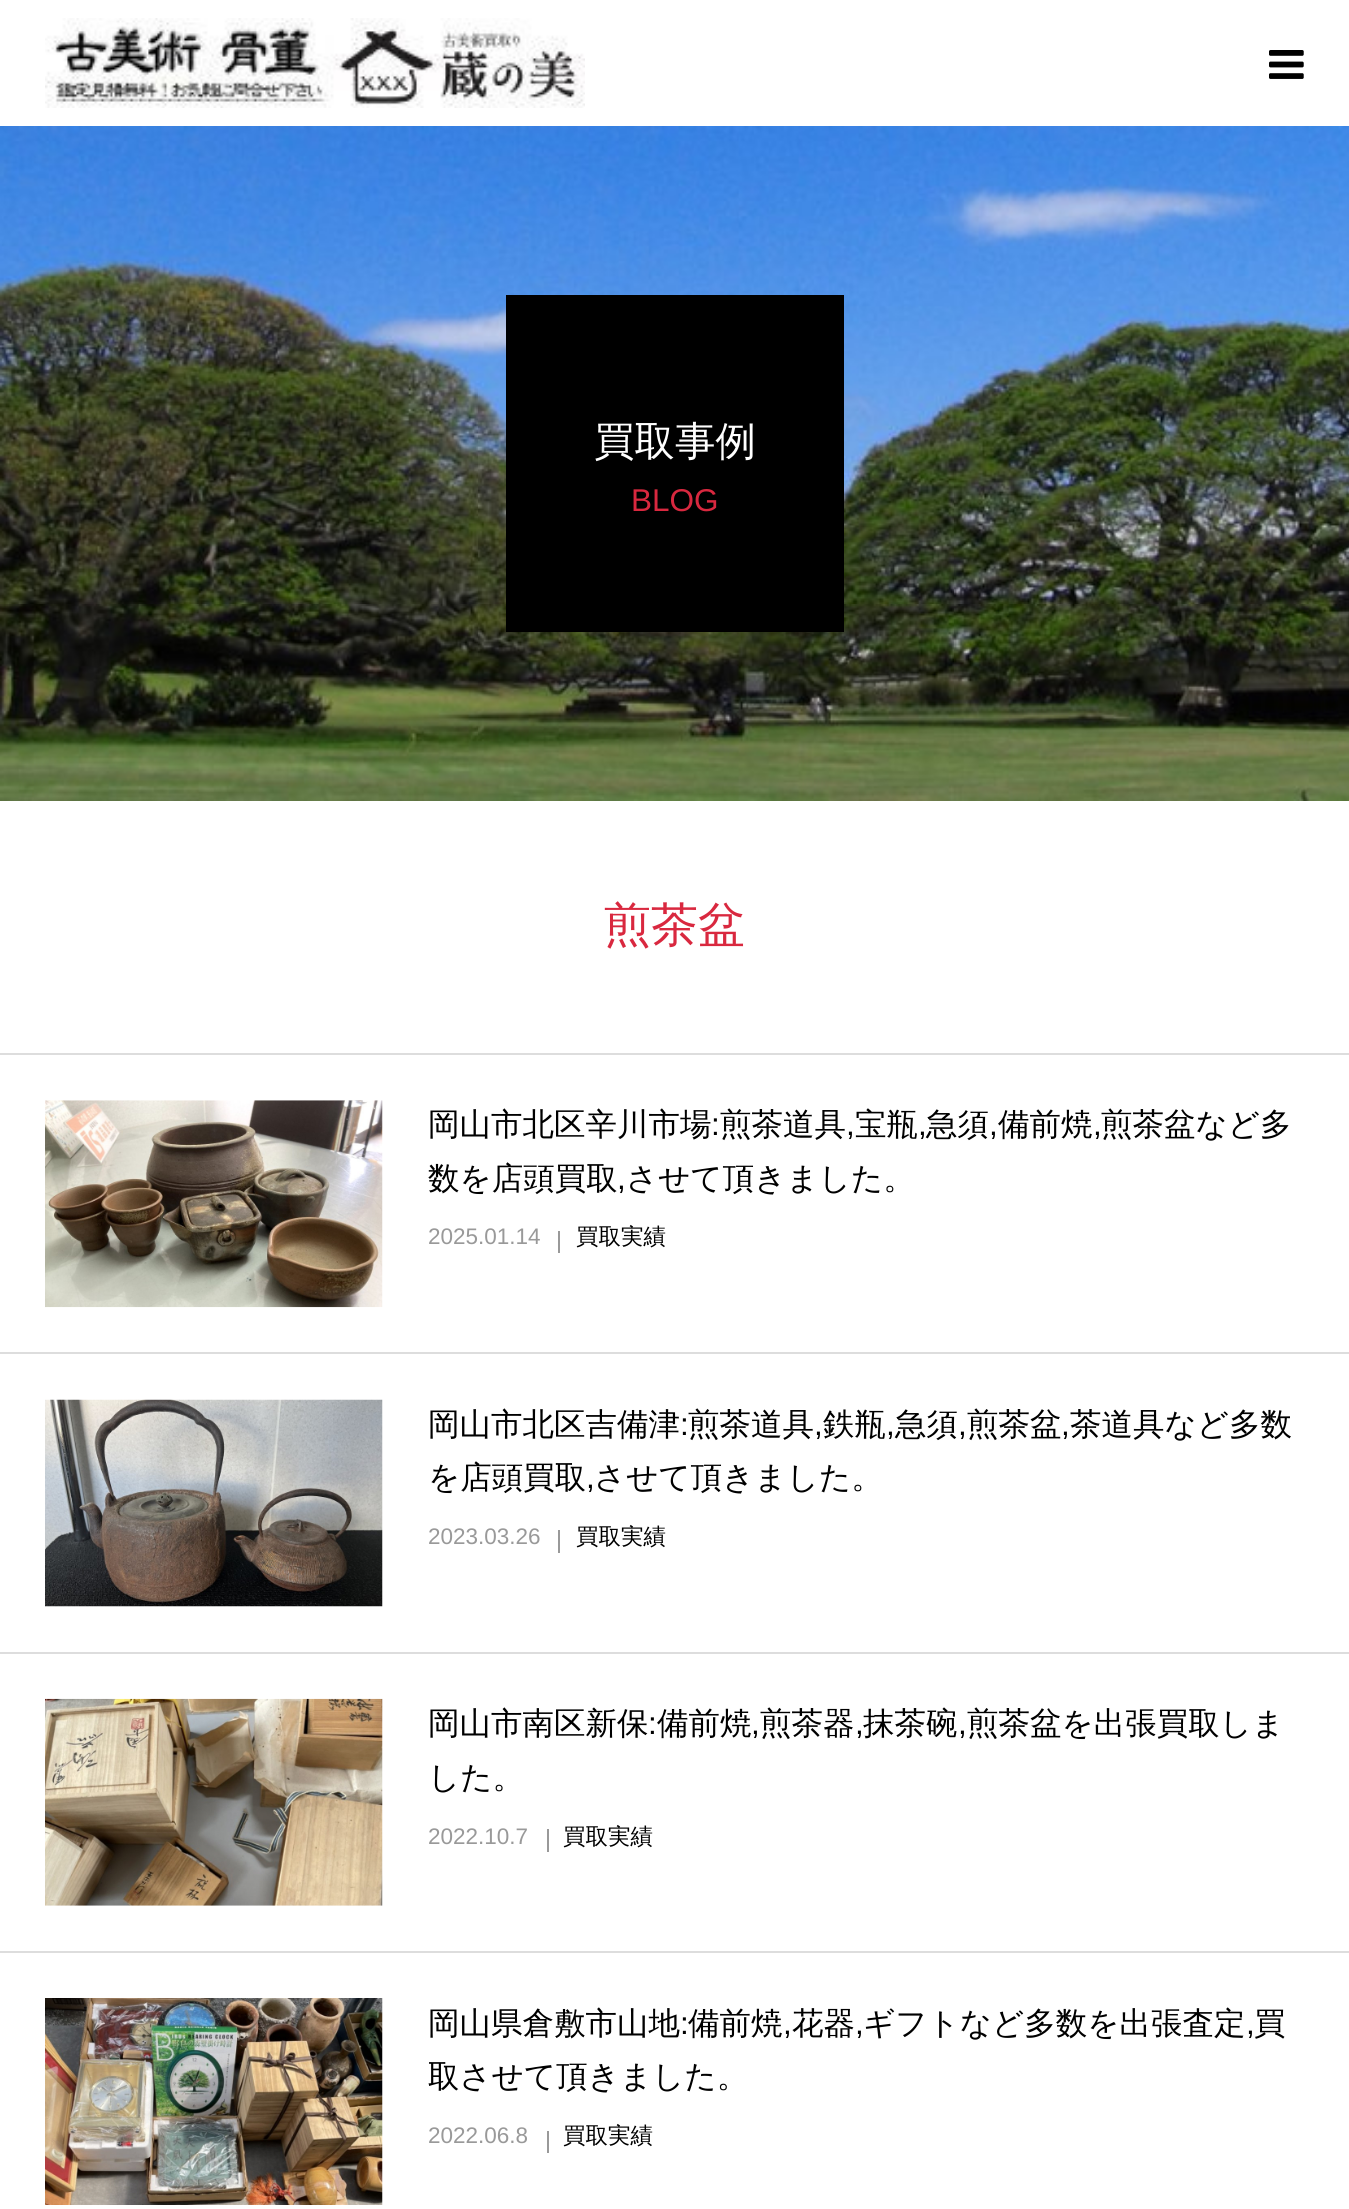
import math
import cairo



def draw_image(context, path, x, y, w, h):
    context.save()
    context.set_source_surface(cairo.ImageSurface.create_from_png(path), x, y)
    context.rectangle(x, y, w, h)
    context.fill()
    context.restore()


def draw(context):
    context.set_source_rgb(1, 1, 1)
    context.paint()
    draw_image(context, "images/1.png", 45, 18, 540, 90)
    draw_image(context, "images/2.png", 1269, 50, 35, 29)
    draw_image(context, "images/3.png", 0, 126, 1349, 675)
    context.set_source_rgb(0, 0, 0)
    context.rectangle(506, 295, 338, 337)
    context.fill()
    context.set_source_rgb(221 / 255, 221 / 255, 221 / 255)
    context.rectangle(0, 1053, 1349, 2)
    context.fill()
    context.rectangle(0, 1352, 1349, 2)
    context.fill()
    draw_image(context, "images/4.png", 45, 1100, 338, 208)
    context.set_source_rgb(153 / 255, 153 / 255, 153 / 255)
    context.rectangle(558, 1231, 2, 22)
    context.fill()
    context.set_source_rgb(221 / 255, 221 / 255, 221 / 255)
    context.rectangle(0, 1652, 1349, 2)
    context.fill()
    draw_image(context, "images/5.png", 45, 1399, 338, 208)
    context.set_source_rgb(153 / 255, 153 / 255, 153 / 255)
    context.rectangle(558, 1530, 2, 23)
    context.fill()
    context.set_source_rgb(221 / 255, 221 / 255, 221 / 255)
    context.rectangle(0, 1951, 1349, 2)
    context.fill()
    draw_image(context, "images/6.png", 45, 1698, 338, 208)
    context.set_source_rgb(153 / 255, 153 / 255, 153 / 255)
    context.rectangle(547, 1829, 2, 23)
    context.fill()
    draw_image(context, "images/7.png", 45, 1998, 338, 207)
    context.rectangle(547, 2131, 2, 22)
    context.fill()
    context.select_font_face("WenQuanYi Zen Hei Medium")
    context.set_font_size(40.5)
    context.set_source_rgb(1, 1, 1)
    context.move_to(594, 455)
    context.show_text("買取事例")
    context.select_font_face("Liberation Sans")
    context.set_font_size(31.5)
    context.set_source_rgb(217 / 255, 40 / 255, 63 / 255)
    context.move_to(631, 511)
    context.show_text("BLOG")
    context.select_font_face("WenQuanYi Zen Hei Medium")
    context.set_font_size(47)
    context.move_to(604, 941)
    context.show_text("煎茶盆")
    context.set_font_size(31.5)
    context.set_source_rgb(0, 0, 0)
    context.move_to(428, 1135)
    context.show_text("岡山市北区辛川市場")
    context.select_font_face("Liberation Sans")
    context.move_to(711, 1135)
    context.show_text(":")
    context.select_font_face("WenQuanYi Zen Hei Medium")
    context.move_to(720, 1135)
    context.show_text("煎茶道具")
    context.select_font_face("Liberation Sans")
    context.move_to(846, 1135)
    context.show_text(",")
    context.select_font_face("WenQuanYi Zen Hei Medium")
    context.move_to(855, 1135)
    context.show_text("宝瓶")
    context.select_font_face("Liberation Sans")
    context.move_to(918, 1135)
    context.show_text(",")
    context.select_font_face("WenQuanYi Zen Hei Medium")
    context.move_to(926, 1135)
    context.show_text("急須")
    context.select_font_face("Liberation Sans")
    context.move_to(989, 1135)
    context.show_text(",")
    context.select_font_face("WenQuanYi Zen Hei Medium")
    context.move_to(998, 1135)
    context.show_text("備前焼")
    context.select_font_face("Liberation Sans")
    context.move_to(1093, 1135)
    context.show_text(",")
    context.select_font_face("WenQuanYi Zen Hei Medium")
    context.move_to(1101, 1135)
    context.show_text("煎茶盆など多")
    context.move_to(428, 1189)
    context.show_text("数を店頭買取")
    context.select_font_face("Liberation Sans")
    context.move_to(617, 1189)
    context.show_text(",")
    context.select_font_face("WenQuanYi Zen Hei Medium")
    context.move_to(626, 1189)
    context.show_text("させて頂きました。")
    context.select_font_face("Liberation Sans")
    context.set_font_size(22.5)
    context.set_source_rgb(153 / 255, 153 / 255, 153 / 255)
    context.move_to(428, 1244)
    context.show_text("2025.01.14")
    context.select_font_face("WenQuanYi Zen Hei Medium")
    context.set_source_rgb(0, 0, 0)
    context.move_to(576, 1244)
    context.show_text("買取実績")
    context.set_font_size(31.5)
    context.move_to(428, 1435)
    context.show_text("岡山市北区吉備津")
    context.select_font_face("Liberation Sans")
    context.move_to(680, 1435)
    context.show_text(":")
    context.select_font_face("WenQuanYi Zen Hei Medium")
    context.move_to(688, 1435)
    context.show_text("煎茶道具")
    context.select_font_face("Liberation Sans")
    context.move_to(814, 1435)
    context.show_text(",")
    context.select_font_face("WenQuanYi Zen Hei Medium")
    context.move_to(823, 1435)
    context.show_text("鉄瓶")
    context.select_font_face("Liberation Sans")
    context.move_to(886, 1435)
    context.show_text(",")
    context.select_font_face("WenQuanYi Zen Hei Medium")
    context.move_to(895, 1435)
    context.show_text("急須")
    context.select_font_face("Liberation Sans")
    context.move_to(958, 1435)
    context.show_text(",")
    context.select_font_face("WenQuanYi Zen Hei Medium")
    context.move_to(967, 1435)
    context.show_text("煎茶盆")
    context.select_font_face("Liberation Sans")
    context.move_to(1061, 1435)
    context.show_text(",")
    context.select_font_face("WenQuanYi Zen Hei Medium")
    context.move_to(1070, 1435)
    context.show_text("茶道具など多数")
    context.move_to(428, 1488)
    context.show_text("を店頭買取")
    context.select_font_face("Liberation Sans")
    context.move_to(586, 1488)
    context.show_text(",")
    context.select_font_face("WenQuanYi Zen Hei Medium")
    context.move_to(594, 1488)
    context.show_text("させて頂きました。")
    context.select_font_face("Liberation Sans")
    context.set_font_size(22.5)
    context.set_source_rgb(153 / 255, 153 / 255, 153 / 255)
    context.move_to(428, 1544)
    context.show_text("2023.03.26")
    context.select_font_face("WenQuanYi Zen Hei Medium")
    context.set_source_rgb(0, 0, 0)
    context.move_to(576, 1544)
    context.show_text("買取実績")
    context.set_font_size(31.5)
    context.move_to(428, 1734)
    context.show_text("岡山市南区新保")
    context.select_font_face("Liberation Sans")
    context.move_to(648, 1734)
    context.show_text(":")
    context.select_font_face("WenQuanYi Zen Hei Medium")
    context.move_to(657, 1734)
    context.show_text("備前焼")
    context.select_font_face("Liberation Sans")
    context.move_to(751, 1734)
    context.show_text(",")
    context.select_font_face("WenQuanYi Zen Hei Medium")
    context.move_to(760, 1734)
    context.show_text("煎茶器")
    context.select_font_face("Liberation Sans")
    context.move_to(855, 1734)
    context.show_text(",")
    context.select_font_face("WenQuanYi Zen Hei Medium")
    context.move_to(863, 1734)
    context.show_text("抹茶碗")
    context.select_font_face("Liberation Sans")
    context.move_to(958, 1734)
    context.show_text(",")
    context.select_font_face("WenQuanYi Zen Hei Medium")
    context.move_to(967, 1734)
    context.show_text("煎茶盆を出張買取しま")
    context.move_to(428, 1788)
    context.show_text("した。")
    context.select_font_face("Liberation Sans")
    context.set_font_size(22.5)
    context.set_source_rgb(153 / 255, 153 / 255, 153 / 255)
    context.move_to(428, 1844)
    context.show_text("2022.10.7")
    context.select_font_face("WenQuanYi Zen Hei Medium")
    context.set_source_rgb(0, 0, 0)
    context.move_to(563, 1844)
    context.show_text("買取実績")
    context.set_font_size(31.5)
    context.move_to(428, 2034)
    context.show_text("岡山県倉敷市山地")
    context.select_font_face("Liberation Sans")
    context.move_to(680, 2034)
    context.show_text(":")
    context.select_font_face("WenQuanYi Zen Hei Medium")
    context.move_to(688, 2034)
    context.show_text("備前焼")
    context.select_font_face("Liberation Sans")
    context.move_to(783, 2034)
    context.show_text(",")
    context.select_font_face("WenQuanYi Zen Hei Medium")
    context.move_to(792, 2034)
    context.show_text("花器")
    context.select_font_face("Liberation Sans")
    context.move_to(855, 2034)
    context.show_text(",")
    context.select_font_face("WenQuanYi Zen Hei Medium")
    context.move_to(863, 2034)
    context.show_text("ギフトなど多数を出張査定")
    context.select_font_face("Liberation Sans")
    context.move_to(1246, 2034)
    context.show_text(",")
    context.select_font_face("WenQuanYi Zen Hei Medium")
    context.move_to(1254, 2034)
    context.show_text("買")
    context.move_to(428, 2087)
    context.show_text("取させて頂きました。")
    context.select_font_face("Liberation Sans")
    context.set_font_size(22.5)
    context.set_source_rgb(153 / 255, 153 / 255, 153 / 255)
    context.move_to(428, 2143)
    context.show_text("2022.06.8")
    context.select_font_face("WenQuanYi Zen Hei Medium")
    context.set_source_rgb(0, 0, 0)
    context.move_to(563, 2143)
    context.show_text("買取実績")


surface = cairo.ImageSurface(cairo.Format.RGB24, 1349, 2209)
context = cairo.Context(surface)
options = cairo.FontOptions()
options.set_hint_metrics(cairo.HintMetrics.OFF)
options.set_hint_style(cairo.HintStyle.NONE)
context.set_font_options(options)
context.set_miter_limit(4)
draw(context)
surface.write_to_png("out.png")
